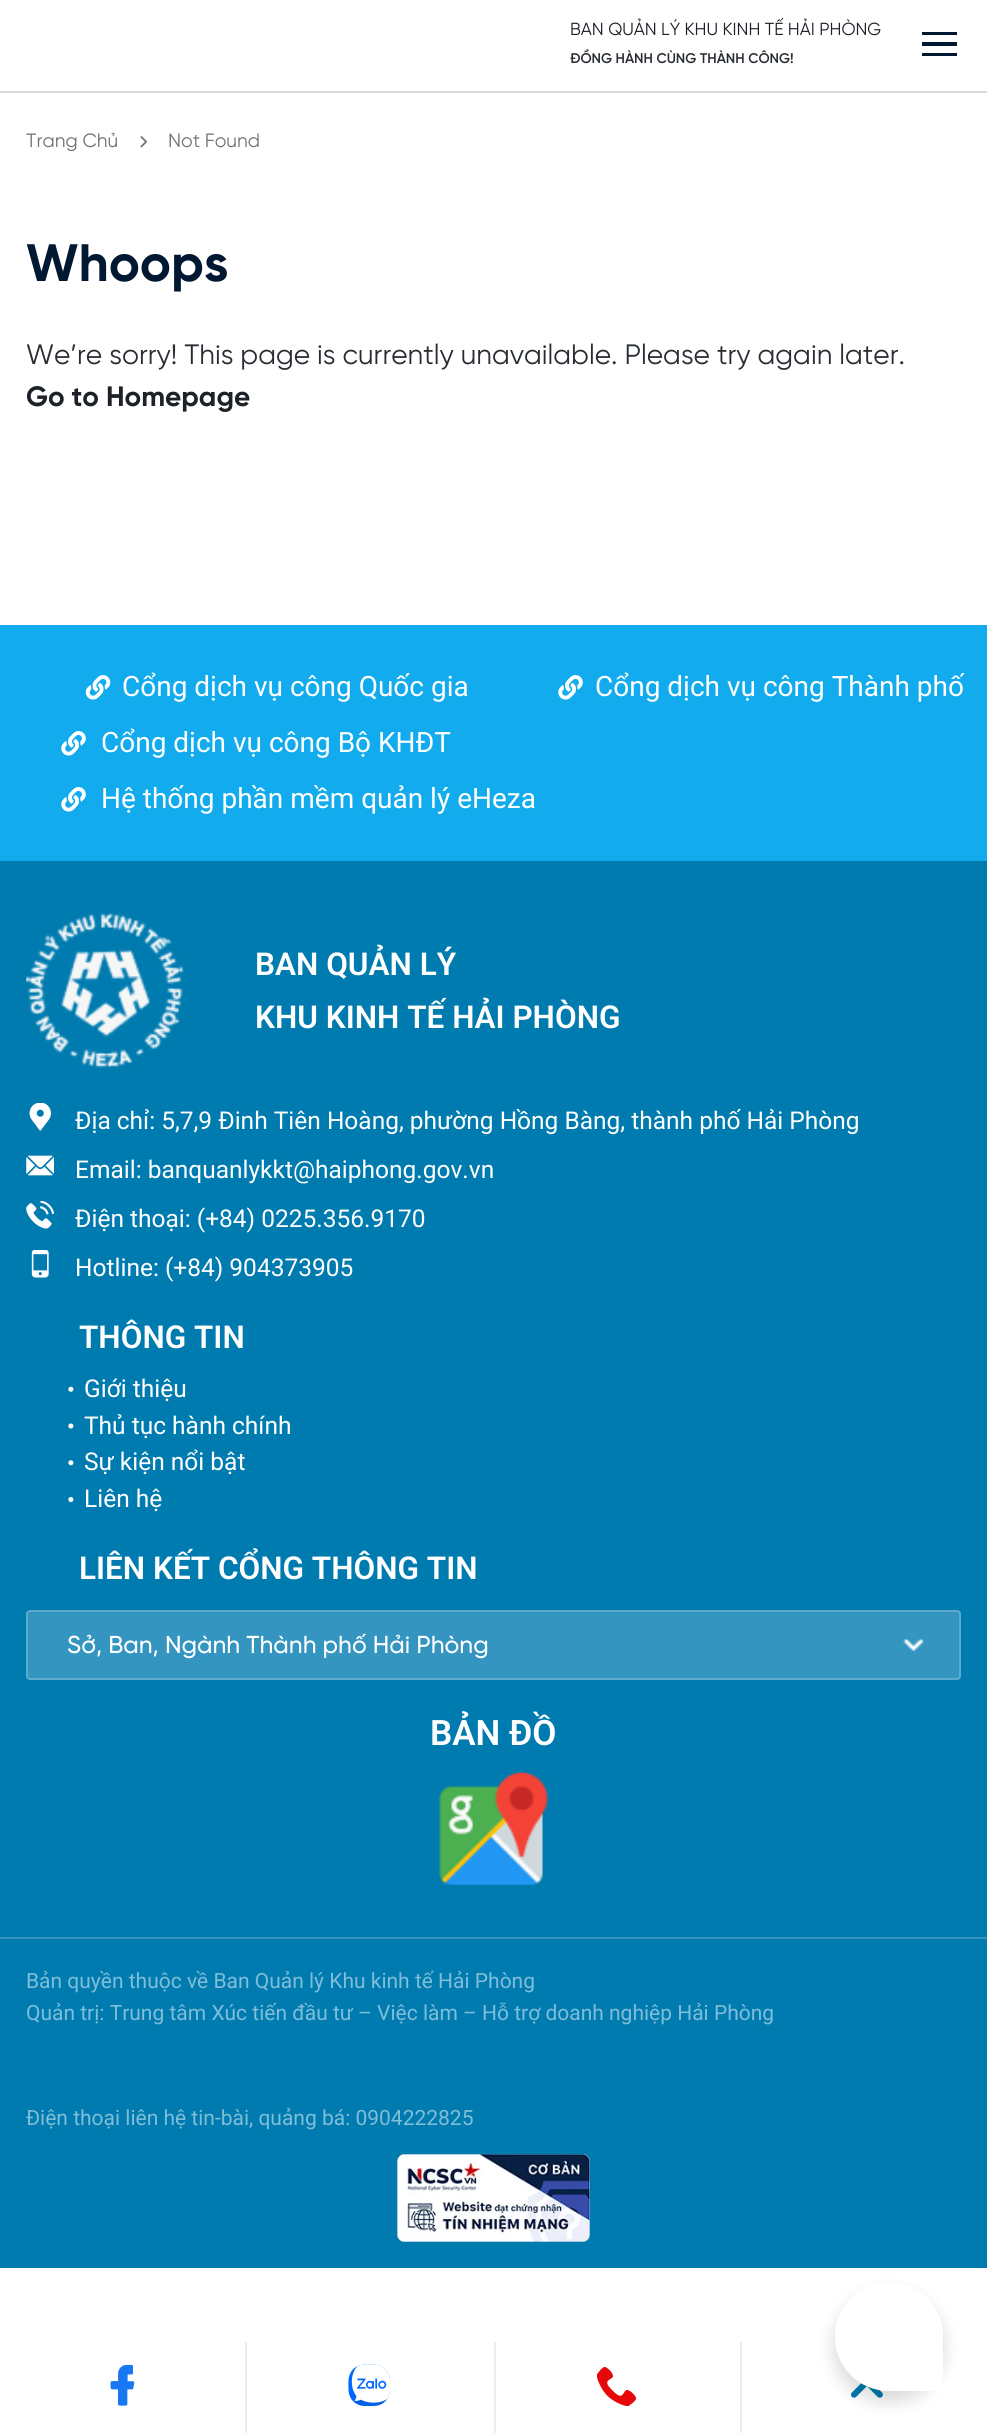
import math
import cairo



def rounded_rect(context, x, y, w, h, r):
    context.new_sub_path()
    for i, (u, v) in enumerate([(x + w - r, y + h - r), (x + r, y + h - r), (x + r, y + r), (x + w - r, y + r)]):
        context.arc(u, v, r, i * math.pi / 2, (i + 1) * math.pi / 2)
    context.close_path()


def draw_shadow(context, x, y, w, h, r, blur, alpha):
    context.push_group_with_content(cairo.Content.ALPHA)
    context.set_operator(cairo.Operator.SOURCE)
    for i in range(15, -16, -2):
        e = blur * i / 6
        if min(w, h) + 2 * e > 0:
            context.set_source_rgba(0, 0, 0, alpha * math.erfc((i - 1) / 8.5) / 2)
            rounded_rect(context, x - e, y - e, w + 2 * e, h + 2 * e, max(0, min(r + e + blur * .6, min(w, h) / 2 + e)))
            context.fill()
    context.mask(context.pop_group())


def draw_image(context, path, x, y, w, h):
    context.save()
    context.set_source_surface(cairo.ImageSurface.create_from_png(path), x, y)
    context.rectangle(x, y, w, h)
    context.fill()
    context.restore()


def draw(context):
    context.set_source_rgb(1, 1, 1)
    context.paint()
    context.set_source_rgb(217 / 255, 217 / 255, 217 / 255)
    context.rectangle(0, 91, 987, 2)
    context.fill()
    context.set_source_rgb(0, 24 / 255, 50 / 255)
    context.rectangle(922, 32, 35, 3)
    context.fill()
    context.rectangle(922, 42, 35, 4)
    context.fill()
    context.rectangle(922, 53, 35, 3)
    context.fill()
    draw_image(context, "images/1.png", 140, 136, 8, 12)
    context.set_source_rgb(18 / 255, 172 / 255, 238 / 255)
    context.rectangle(0, 625, 987, 236)
    context.fill()
    draw_image(context, "images/2.png", 85, 675, 26, 25)
    draw_image(context, "images/3.png", 558, 675, 25, 25)
    draw_image(context, "images/3.png", 61, 731, 25, 25)
    draw_image(context, "images/3.png", 61, 787, 25, 25)
    context.set_source_rgb(0, 123 / 255, 176 / 255)
    context.rectangle(0, 861, 987, 1076)
    context.fill()
    context.set_source_rgb(51 / 255, 149 / 255, 192 / 255)
    context.rectangle(0, 1937, 987, 2)
    context.fill()
    draw_image(context, "images/4.png", 26, 913, 158, 155)
    draw_image(context, "images/5.png", 29, 1103, 22, 28)
    draw_image(context, "images/6.png", 26, 1155, 28, 21)
    draw_image(context, "images/7.png", 26, 1201, 28, 28)
    draw_image(context, "images/8.png", 31, 1250, 18, 28)
    draw_image(context, "images/9.png", 68, 1386, 6, 6)
    draw_image(context, "images/10.png", 68, 1423, 6, 6)
    draw_image(context, "images/11.png", 68, 1460, 6, 6)
    draw_image(context, "images/12.png", 68, 1497, 6, 6)
    rounded_rect(context, 26, 1610, 935, 70, 4)
    context.fill()
    draw_image(context, "images/13.png", 903, 1638, 21, 14)
    rounded_rect(context, 27, 1611, 933, 68, 3)
    context.set_source_rgba(1, 1, 1, 0.2)
    context.stroke()
    draw_image(context, "images/14.png", 439, 1772, 110, 113)
    context.set_source_rgb(0, 123 / 255, 176 / 255)
    context.rectangle(0, 1939, 987, 329)
    context.fill()
    draw_image(context, "images/15.png", 397, 2154, 193, 88)
    context.set_source_rgb(237 / 255, 237 / 255, 237 / 255)
    context.rectangle(245, 2342, 2, 91)
    context.fill()
    draw_image(context, "images/16.png", 110, 2364, 25, 42)
    context.rectangle(494, 2342, 2, 91)
    context.fill()
    draw_image(context, "images/17.png", 348, 2364, 42, 42)
    context.rectangle(740, 2342, 2, 91)
    context.fill()
    draw_image(context, "images/18.png", 597, 2366, 40, 40)
    draw_image(context, "images/19.png", 851, 2383, 32, 15)
    context.set_source_rgb(0, 0, 0)
    draw_shadow(context, 835, 2293, 108, 108, 54, 9, 0.16)
    context.set_source_rgb(1, 1, 1)
    context.new_path()
    context.move_to(889, 2282)
    context.curve_to(919, 2282, 943, 2306, 943, 2336)
    context.line_to(943, 2391)
    context.line_to(889, 2391)
    context.curve_to(859, 2391, 835, 2367, 835, 2337)
    context.line_to(835, 2336)
    context.curve_to(835, 2306, 859, 2282, 889, 2282)
    context.close_path()
    context.fill()
    context.select_font_face("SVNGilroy")
    context.set_font_size(17.5)
    context.set_source_rgb(29 / 255, 33 / 255, 40 / 255)
    context.move_to(570, 35)
    context.show_text("BAN QUẢN LÝ KHU KINH TẾ HẢI PHÒNG")
    context.select_font_face("SVNGilroy SemiBold")
    context.set_font_size(14)
    context.set_source_rgb(40 / 255, 44 / 255, 51 / 255)
    context.move_to(570, 63)
    context.show_text("ĐỒNG HÀNH CÙNG THÀNH CÔNG!")
    context.select_font_face("SVNGilroy")
    context.set_font_size(19.25)
    context.set_source_rgb(113 / 255, 113 / 255, 113 / 255)
    context.move_to(26, 147)
    context.show_text("Trang Chủ")
    context.move_to(168, 147)
    context.show_text("Not Found")
    context.select_font_face("SVNGilroy", cairo.FontSlant.NORMAL, cairo.FontWeight.BOLD)
    context.set_font_size(52.5)
    context.set_source_rgb(0, 24 / 255, 50 / 255)
    context.move_to(26, 281)
    context.show_text("Whoops")
    context.select_font_face("SVNGilroy")
    context.set_font_size(28)
    context.set_source_rgb(40 / 255, 44 / 255, 51 / 255)
    context.move_to(26, 364)
    context.show_text("We’re sorry! This page is currently unavailable. Please try again later.")
    context.select_font_face("SVNGilroy", cairo.FontSlant.NORMAL, cairo.FontWeight.BOLD)
    context.set_source_rgb(29 / 255, 33 / 255, 40 / 255)
    context.move_to(26, 406)
    context.show_text("Go to Homepage")
    context.select_font_face("Roboto")
    context.set_source_rgb(1, 1, 1)
    context.move_to(122, 696)
    context.show_text("Cổng dịch vụ công Quốc gia")
    context.move_to(595, 696)
    context.show_text("Cổng dịch vụ công Thành phố")
    context.move_to(101, 752)
    context.show_text("Cổng dịch vụ công Bộ KHĐT")
    context.move_to(101, 808)
    context.show_text("Hệ thống phần mềm quản lý eHeza")
    context.select_font_face("Roboto SemiBold")
    context.set_font_size(31.5)
    context.move_to(255, 975)
    context.show_text("BAN QUẢN LÝ")
    context.move_to(255, 1028)
    context.show_text("KHU KINH TẾ HẢI PHÒNG")
    context.select_font_face("Roboto")
    context.set_font_size(24.5)
    context.move_to(75, 1129)
    context.show_text("Địa chỉ: 5,7,9 Đinh Tiên Hoàng, phường Hồng Bàng, thành phố Hải Phòng")
    context.move_to(75, 1178)
    context.show_text("Email: banquanlykkt@haiphong.gov.vn")
    context.move_to(75, 1227)
    context.show_text("Điện thoại: (+84) 0225.356.9170")
    context.move_to(75, 1276)
    context.show_text("Hotline: (+84) 904373905")
    context.select_font_face("Roboto SemiBold")
    context.set_font_size(31.5)
    context.move_to(79, 1348)
    context.show_text("THÔNG TIN")
    context.select_font_face("Roboto")
    context.set_font_size(24.5)
    context.move_to(84, 1397)
    context.show_text("Giới thiệu")
    context.move_to(84, 1434)
    context.show_text("Thủ tục hành chính")
    context.move_to(84, 1470)
    context.show_text("Sự kiện nổi bật")
    context.move_to(84, 1507)
    context.show_text("Liên hệ")
    context.select_font_face("Roboto SemiBold")
    context.set_font_size(31.5)
    context.move_to(79, 1579)
    context.show_text("LIÊN KẾT CỔNG THÔNG TIN")
    context.select_font_face("SVNGilroy Medium")
    context.set_font_size(24.5)
    context.move_to(67, 1653)
    context.show_text("Sở, Ban, Ngành Thành phố Hải Phòng")
    context.select_font_face("Roboto SemiBold")
    context.set_font_size(35)
    context.move_to(430, 1745)
    context.show_text("BẢN ĐỒ")
    context.select_font_face("Roboto")
    context.set_font_size(21)
    context.set_source_rgb(128 / 255, 189 / 255, 216 / 255)
    context.move_to(26, 1988)
    context.show_text("Bản quyền thuộc về Ban Quản lý Khu kinh tế Hải Phòng")
    context.move_to(26, 2020)
    context.show_text("Quản trị: Trung tâm Xúc tiến đầu tư – Việc làm – Hỗ trợ doanh nghiệp Hải Phòng")
    context.move_to(26, 2125)
    context.show_text("Điện thoại liên hệ tin-bài, quảng bá: 0904222825")


surface = cairo.ImageSurface(cairo.Format.RGB24, 987, 2433)
context = cairo.Context(surface)
options = cairo.FontOptions()
options.set_hint_metrics(cairo.HintMetrics.OFF)
options.set_hint_style(cairo.HintStyle.NONE)
context.set_font_options(options)
context.set_miter_limit(4)
draw(context)
surface.write_to_png("out.png")
